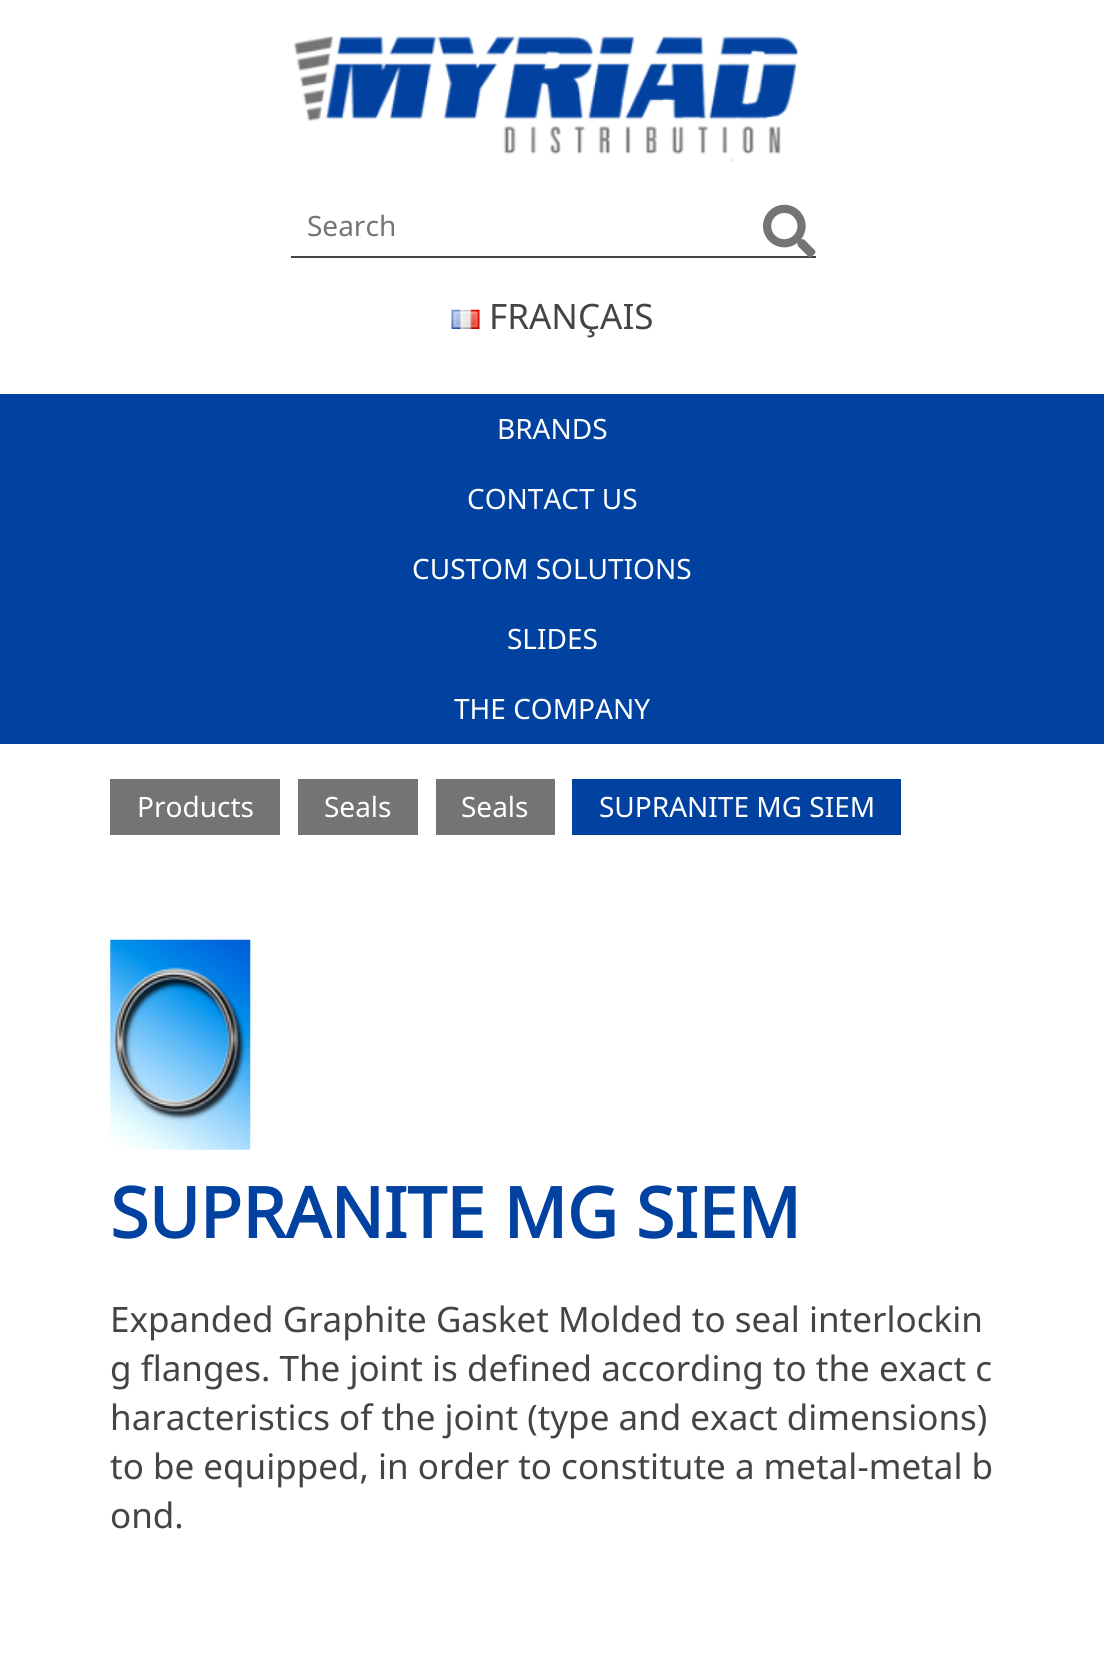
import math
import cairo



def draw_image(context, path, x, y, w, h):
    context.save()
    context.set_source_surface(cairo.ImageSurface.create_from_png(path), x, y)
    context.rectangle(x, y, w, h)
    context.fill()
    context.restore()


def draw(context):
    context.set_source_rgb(1, 1, 1)
    context.paint()
    draw_image(context, "images/1.png", 294, 36, 504, 127)
    context.set_source_rgb(68 / 255, 68 / 255, 68 / 255)
    context.rectangle(291, 256, 525, 2)
    context.fill()
    draw_image(context, "images/2.png", 763, 204, 53, 54)
    draw_image(context, "images/3.png", 451, 309, 29, 20)
    context.set_source_rgb(1 / 255, 66 / 255, 161 / 255)
    context.rectangle(0, 394, 1104, 350)
    context.fill()
    context.set_source_rgb(116 / 255, 116 / 255, 116 / 255)
    context.rectangle(110, 779, 170, 56)
    context.fill()
    context.rectangle(298, 779, 120, 56)
    context.fill()
    context.rectangle(436, 779, 119, 56)
    context.fill()
    context.set_source_rgb(1 / 255, 66 / 255, 161 / 255)
    context.rectangle(572, 779, 329, 56)
    context.fill()
    draw_image(context, "images/4.png", 110, 939, 141, 211)
    context.select_font_face("Noto Sans")
    context.set_font_size(28)
    context.set_source_rgb(117 / 255, 117 / 255, 117 / 255)
    context.move_to(307, 236)
    context.show_text("Search")
    context.set_font_size(35)
    context.set_source_rgb(68 / 255, 68 / 255, 68 / 255)
    context.move_to(489, 329)
    context.show_text("FRANÇAIS")
    context.set_font_size(28)
    context.set_source_rgb(1, 1, 1)
    context.move_to(497, 439)
    context.show_text("BRANDS")
    context.move_to(467, 509)
    context.show_text("CONTACT US")
    context.move_to(412, 579)
    context.show_text("CUSTOM SOLUTIONS")
    context.move_to(507, 649)
    context.show_text("SLIDES")
    context.move_to(454, 719)
    context.show_text("THE COMPANY")
    context.move_to(137, 817)
    context.show_text("Products")
    context.move_to(324, 817)
    context.show_text("Seals")
    context.move_to(461, 817)
    context.show_text("Seals")
    context.move_to(599, 817)
    context.show_text("SUPRANITE MG SIEM")
    context.select_font_face("Noto Sans", cairo.FontSlant.NORMAL, cairo.FontWeight.BOLD)
    context.set_font_size(70)
    context.set_source_rgb(1 / 255, 66 / 255, 161 / 255)
    context.move_to(110, 1238)
    context.show_text("SUPRANITE MG SIEM")
    context.select_font_face("Noto Sans")
    context.set_font_size(35)
    context.set_source_rgb(68 / 255, 68 / 255, 68 / 255)
    context.move_to(110, 1332)
    context.show_text("Expanded Graphite Gasket Molded to seal interlockin")
    context.move_to(110, 1381)
    context.show_text("g flanges. The joint is defined according to the exact c")
    context.move_to(110, 1430)
    context.show_text("haracteristics of the joint (type and exact dimensions)")
    context.move_to(110, 1479)
    context.show_text("to be equipped, in order to constitute a metal-metal b")
    context.move_to(110, 1528)
    context.show_text("ond.")


surface = cairo.ImageSurface(cairo.Format.RGB24, 1104, 1663)
context = cairo.Context(surface)
options = cairo.FontOptions()
options.set_hint_metrics(cairo.HintMetrics.OFF)
options.set_hint_style(cairo.HintStyle.NONE)
context.set_font_options(options)
context.set_miter_limit(4)
draw(context)
surface.write_to_png("out.png")
